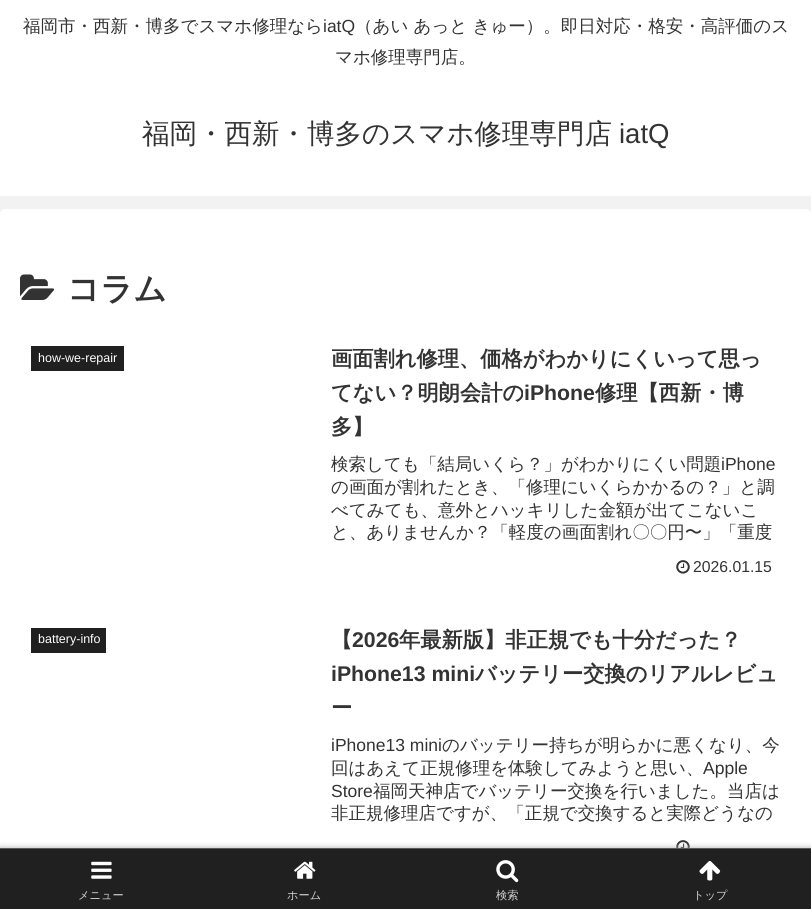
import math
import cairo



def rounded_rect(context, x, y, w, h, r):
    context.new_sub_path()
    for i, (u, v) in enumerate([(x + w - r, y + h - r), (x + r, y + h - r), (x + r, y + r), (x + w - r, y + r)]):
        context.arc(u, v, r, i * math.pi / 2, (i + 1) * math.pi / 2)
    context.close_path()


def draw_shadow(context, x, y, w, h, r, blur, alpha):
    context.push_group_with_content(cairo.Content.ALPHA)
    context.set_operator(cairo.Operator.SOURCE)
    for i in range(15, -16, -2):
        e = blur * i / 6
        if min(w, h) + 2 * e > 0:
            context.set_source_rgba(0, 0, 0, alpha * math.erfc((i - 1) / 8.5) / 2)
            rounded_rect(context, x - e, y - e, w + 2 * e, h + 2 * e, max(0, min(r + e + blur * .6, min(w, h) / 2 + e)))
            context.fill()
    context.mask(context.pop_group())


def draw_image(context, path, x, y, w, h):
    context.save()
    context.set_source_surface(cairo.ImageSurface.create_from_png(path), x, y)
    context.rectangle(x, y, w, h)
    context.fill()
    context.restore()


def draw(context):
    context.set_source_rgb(242 / 255, 242 / 255, 242 / 255)
    context.paint()
    context.set_source_rgb(1, 1, 1)
    context.rectangle(0, 0, 811, 196)
    context.fill()
    rounded_rect(context, 0, 209, 811, 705, 5)
    context.fill()
    draw_image(context, "images/1.png", 20, 274, 35, 26)
    context.set_source_rgb(32 / 255, 32 / 255, 32 / 255)
    context.rectangle(31, 346, 93, 25)
    context.fill()
    draw_image(context, "images/2.png", 676, 560, 14, 14)
    context.rectangle(31, 628, 75, 25)
    context.fill()
    draw_image(context, "images/3.png", 676, 840, 14, 8)
    context.set_source_rgb(169 / 255, 169 / 255, 169 / 255)
    draw_shadow(context, 0, 848, 811, 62, 0, 3, 1)
    context.set_source_rgb(32 / 255, 32 / 255, 32 / 255)
    context.rectangle(0, 849, 811, 60)
    context.fill()
    context.set_source_rgb(89 / 255, 88 / 255, 87 / 255)
    context.rectangle(0, 848, 811, 1)
    context.fill()
    draw_image(context, "images/4.png", 91, 861, 21, 18)
    draw_image(context, "images/5.png", 294, 861, 22, 18)
    draw_image(context, "images/6.png", 496, 860, 23, 23)
    draw_image(context, "images/7.png", 699, 861, 22, 20)
    context.select_font_face("WenQuanYi Zen Hei Medium")
    context.set_font_size(17.5)
    context.set_source_rgb(51 / 255, 51 / 255, 51 / 255)
    context.move_to(23, 32)
    context.show_text("福岡市・西新・博多でスマホ修理なら")
    context.select_font_face("Liberation Sans")
    context.move_to(323, 32)
    context.show_text("iatQ")
    context.select_font_face("WenQuanYi Zen Hei Medium")
    context.move_to(355, 32)
    context.show_text("（あい あっと きゅー）。即日対応・格安・高評価のス")
    context.move_to(335, 63)
    context.show_text("マホ修理専門店。")
    context.set_font_size(27.5)
    context.move_to(142, 143)
    context.show_text("福岡・西新・博多のスマホ修理専門店")
    context.select_font_face("Liberation Sans")
    context.move_to(619, 143)
    context.show_text("iatQ")
    context.select_font_face("WenQuanYi Zen Hei", cairo.FontSlant.NORMAL, cairo.FontWeight.BOLD)
    context.set_font_size(32.5)
    context.move_to(67, 300)
    context.show_text("コラム")
    context.select_font_face("Liberation Sans")
    context.set_font_size(12.5)
    context.set_source_rgb(1, 1, 1)
    context.move_to(38, 362)
    context.show_text("how-we-repair")
    context.select_font_face("WenQuanYi Zen Hei", cairo.FontSlant.NORMAL, cairo.FontWeight.BOLD)
    context.set_font_size(21.25)
    context.set_source_rgb(51 / 255, 51 / 255, 51 / 255)
    context.move_to(331, 366)
    context.show_text("画面割れ修理、価格がわかりにくいって思っ")
    context.move_to(331, 400)
    context.show_text("てない？明朗会計の")
    context.select_font_face("Liberation Sans", cairo.FontSlant.NORMAL, cairo.FontWeight.BOLD)
    context.move_to(524, 400)
    context.show_text("iPhone")
    context.select_font_face("WenQuanYi Zen Hei", cairo.FontSlant.NORMAL, cairo.FontWeight.BOLD)
    context.move_to(595, 400)
    context.show_text("修理【西新・博")
    context.move_to(331, 434)
    context.show_text("多】")
    context.select_font_face("WenQuanYi Zen Hei Medium")
    context.set_font_size(17.5)
    context.move_to(331, 470)
    context.show_text("検索しても「結局いくら？」がわかりにくい問題")
    context.select_font_face("Liberation Sans")
    context.move_to(721, 470)
    context.show_text("iPhone")
    context.select_font_face("WenQuanYi Zen Hei Medium")
    context.move_to(331, 493)
    context.show_text("の画面が割れたとき、「修理にいくらかかるの？」と調")
    context.move_to(331, 516)
    context.show_text("べてみても、意外とハッキリした金額が出てこないこ")
    context.move_to(331, 538)
    context.show_text("と、ありませんか？「軽度の画面割れ〇〇円〜」「重度")
    context.select_font_face("Liberation Sans")
    context.set_font_size(15.75)
    context.move_to(693, 572)
    context.show_text("2026.01.15")
    context.set_font_size(12.5)
    context.set_source_rgb(1, 1, 1)
    context.move_to(38, 643)
    context.show_text("battery-info")
    context.select_font_face("WenQuanYi Zen Hei", cairo.FontSlant.NORMAL, cairo.FontWeight.BOLD)
    context.set_font_size(21.25)
    context.set_source_rgb(51 / 255, 51 / 255, 51 / 255)
    context.move_to(331, 647)
    context.show_text("【")
    context.select_font_face("Liberation Sans", cairo.FontSlant.NORMAL, cairo.FontWeight.BOLD)
    context.move_to(352, 647)
    context.show_text("2026")
    context.select_font_face("WenQuanYi Zen Hei", cairo.FontSlant.NORMAL, cairo.FontWeight.BOLD)
    context.move_to(399, 647)
    context.show_text("年最新版】非正規でも十分だった？")
    context.select_font_face("Liberation Sans", cairo.FontSlant.NORMAL, cairo.FontWeight.BOLD)
    context.move_to(331, 681)
    context.show_text("iPhone13 mini")
    context.select_font_face("WenQuanYi Zen Hei", cairo.FontSlant.NORMAL, cairo.FontWeight.BOLD)
    context.move_to(475, 681)
    context.show_text("バッテリー交換のリアルレビュ")
    context.move_to(331, 715)
    context.show_text("ー")
    context.select_font_face("Liberation Sans")
    context.set_font_size(17.5)
    context.move_to(331, 751)
    context.show_text("iPhone13 mini")
    context.select_font_face("WenQuanYi Zen Hei Medium")
    context.move_to(442, 751)
    context.show_text("のバッテリー持ちが明らかに悪くなり、今")
    context.move_to(331, 774)
    context.show_text("回はあえて正規修理を体験してみようと思い、")
    context.select_font_face("Liberation Sans")
    context.move_to(703, 774)
    context.show_text("Apple")
    context.move_to(331, 797)
    context.show_text("Store")
    context.select_font_face("WenQuanYi Zen Hei Medium")
    context.move_to(373, 797)
    context.show_text("福岡天神店でバッテリー交換を行いました。当店は")
    context.move_to(331, 819)
    context.show_text("非正規修理店ですが、「正規で交換すると実際どうなの")
    context.set_font_size(11.25)
    context.set_source_rgb(210 / 255, 210 / 255, 210 / 255)
    context.move_to(78, 899)
    context.show_text("メニュー")
    context.move_to(287, 899)
    context.show_text("ホーム")
    context.move_to(496, 899)
    context.show_text("検索")
    context.move_to(693, 899)
    context.show_text("トップ")


surface = cairo.ImageSurface(cairo.Format.RGB24, 811, 909)
context = cairo.Context(surface)
options = cairo.FontOptions()
options.set_hint_metrics(cairo.HintMetrics.OFF)
options.set_hint_style(cairo.HintStyle.NONE)
context.set_font_options(options)
context.set_miter_limit(4)
draw(context)
surface.write_to_png("out.png")
